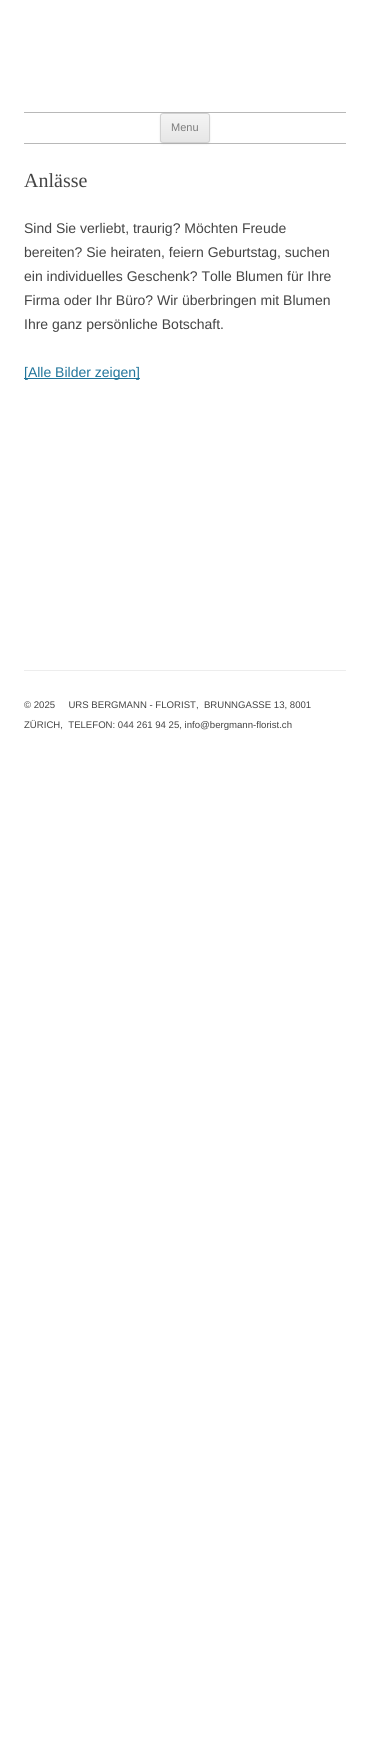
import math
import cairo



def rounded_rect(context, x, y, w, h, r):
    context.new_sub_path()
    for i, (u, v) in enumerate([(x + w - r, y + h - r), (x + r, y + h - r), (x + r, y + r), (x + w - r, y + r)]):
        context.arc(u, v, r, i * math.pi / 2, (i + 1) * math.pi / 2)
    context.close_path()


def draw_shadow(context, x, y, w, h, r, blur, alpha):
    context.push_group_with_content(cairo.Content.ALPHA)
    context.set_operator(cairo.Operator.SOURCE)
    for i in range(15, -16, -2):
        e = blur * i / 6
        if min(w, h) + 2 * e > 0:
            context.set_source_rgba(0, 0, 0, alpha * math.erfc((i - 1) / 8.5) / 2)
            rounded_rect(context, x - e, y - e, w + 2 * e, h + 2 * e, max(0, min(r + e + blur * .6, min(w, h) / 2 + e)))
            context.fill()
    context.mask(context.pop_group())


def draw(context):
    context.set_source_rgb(1, 1, 1)
    context.paint()
    context.set_source_rgb(184 / 255, 184 / 255, 184 / 255)
    context.rectangle(24, 112, 322, 1)
    context.fill()
    context.rectangle(24, 143, 322, 1)
    context.fill()
    context.set_source_rgb(64 / 255, 64 / 255, 64 / 255)
    draw_shadow(context, 160, 114, 50, 30, 3, 1, 0.1)
    context.save()
    rounded_rect(context, 160, 113, 50, 30, 3)
    context.clip()
    gradient = cairo.LinearGradient(185, 114, 185, 142)
    gradient.add_color_stop_rgba(0, 244 / 255, 244 / 255, 244 / 255, 1)
    gradient.add_color_stop_rgba(1, 230 / 255, 230 / 255, 230 / 255, 1)
    context.set_source(gradient)
    context.rectangle(160, 114, 50, 28)
    context.fill()
    context.restore()
    rounded_rect(context, 160.5, 113.5, 49, 29, 2.5)
    context.set_source_rgb(210 / 255, 210 / 255, 210 / 255)
    context.set_line_width(1)
    context.stroke()
    context.set_source_rgb(33 / 255, 117 / 255, 155 / 255)
    context.rectangle(24, 378, 116, 1)
    context.fill()
    context.set_source_rgb(237 / 255, 237 / 255, 237 / 255)
    context.rectangle(24, 670, 322, 1)
    context.fill()
    context.select_font_face("Liberation Sans")
    context.set_font_size(11)
    context.set_source_rgb(124 / 255, 124 / 255, 124 / 255)
    context.move_to(171, 131)
    context.show_text("Menu")
    context.select_font_face("Liberation Serif")
    context.set_font_size(20)
    context.set_source_rgb(68 / 255, 68 / 255, 68 / 255)
    context.move_to(24, 187)
    context.show_text("Anlässe")
    context.select_font_face("Liberation Sans")
    context.set_font_size(14)
    context.move_to(24, 233)
    context.show_text("Sind Sie verliebt, traurig? Möchten Freude")
    context.move_to(24, 257)
    context.show_text("bereiten? Sie heiraten, feiern Geburtstag, suchen")
    context.move_to(24, 281)
    context.show_text("ein individuelles Geschenk? Tolle Blumen für Ihre")
    context.move_to(24, 305)
    context.show_text("Firma oder Ihr Büro? Wir überbringen mit Blumen")
    context.move_to(24, 329)
    context.show_text("Ihre ganz persönliche Botschaft.")
    context.set_source_rgb(33 / 255, 117 / 255, 155 / 255)
    context.move_to(24, 377)
    context.show_text("[Alle Bilder zeigen]")
    context.set_font_size(9.6)
    context.set_source_rgb(68 / 255, 68 / 255, 68 / 255)
    context.move_to(24, 708)
    context.show_text("© 2025     URS BERGMANN - FLORIST,  BRUNNGASSE 13, 8001")
    context.move_to(24, 728)
    context.show_text("ZÜRICH,  TELEFON: 044 261 94 25, info@bergmann-florist.ch")


surface = cairo.ImageSurface(cairo.Format.RGB24, 370, 1748)
context = cairo.Context(surface)
options = cairo.FontOptions()
options.set_hint_metrics(cairo.HintMetrics.OFF)
options.set_hint_style(cairo.HintStyle.NONE)
context.set_font_options(options)
context.set_miter_limit(4)
draw(context)
surface.write_to_png("out.png")
